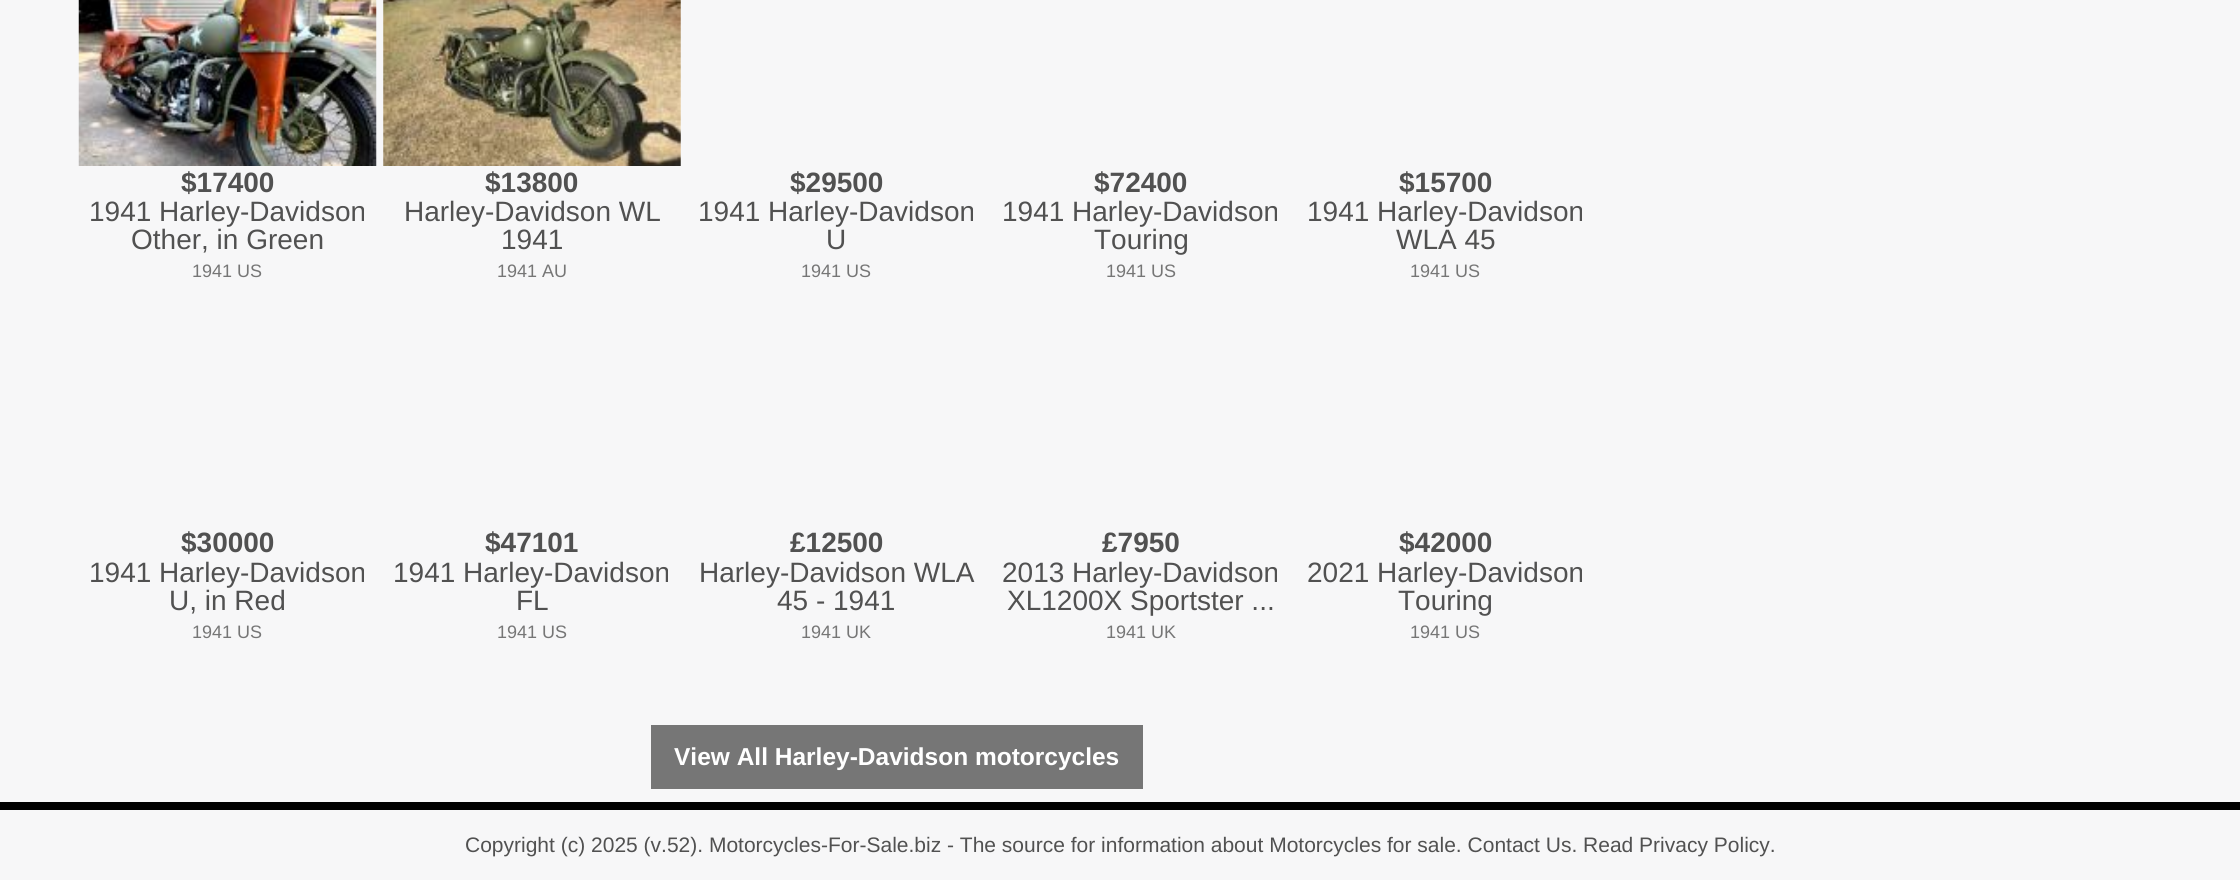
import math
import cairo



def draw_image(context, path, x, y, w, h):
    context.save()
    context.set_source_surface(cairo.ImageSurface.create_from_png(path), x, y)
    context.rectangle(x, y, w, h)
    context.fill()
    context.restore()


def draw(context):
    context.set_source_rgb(247 / 255, 247 / 255, 248 / 255)
    context.paint()
    draw_image(context, "images/1.png", 78, 0, 299, 166)
    draw_image(context, "images/2.png", 383, 0, 298, 166)
    context.set_source_rgb(118 / 255, 118 / 255, 118 / 255)
    context.rectangle(651, 725, 492, 64)
    context.fill()
    context.set_source_rgb(0, 0, 0)
    context.rectangle(0, 802, 2240, 8)
    context.fill()
    context.select_font_face("Liberation Sans", cairo.FontSlant.NORMAL, cairo.FontWeight.BOLD)
    context.set_font_size(28)
    context.set_source_rgb(81 / 255, 81 / 255, 81 / 255)
    context.move_to(181, 192)
    context.show_text("$17400")
    context.select_font_face("Liberation Sans")
    context.move_to(89, 221)
    context.show_text("1941 Harley-Davidson")
    context.move_to(131, 249)
    context.show_text("Other, in Green")
    context.set_font_size(18)
    context.set_source_rgb(118 / 255, 118 / 255, 118 / 255)
    context.move_to(192, 277)
    context.show_text("1941 US")
    context.select_font_face("Liberation Sans", cairo.FontSlant.NORMAL, cairo.FontWeight.BOLD)
    context.set_font_size(28)
    context.set_source_rgb(81 / 255, 81 / 255, 81 / 255)
    context.move_to(485, 192)
    context.show_text("$13800")
    context.select_font_face("Liberation Sans")
    context.move_to(404, 221)
    context.show_text("Harley-Davidson WL")
    context.move_to(501, 249)
    context.show_text("1941")
    context.set_font_size(18)
    context.set_source_rgb(118 / 255, 118 / 255, 118 / 255)
    context.move_to(497, 277)
    context.show_text("1941 AU")
    context.select_font_face("Liberation Sans", cairo.FontSlant.NORMAL, cairo.FontWeight.BOLD)
    context.set_font_size(28)
    context.set_source_rgb(81 / 255, 81 / 255, 81 / 255)
    context.move_to(790, 192)
    context.show_text("$29500")
    context.select_font_face("Liberation Sans")
    context.move_to(698, 221)
    context.show_text("1941 Harley-Davidson")
    context.move_to(826, 249)
    context.show_text("U")
    context.set_font_size(18)
    context.set_source_rgb(118 / 255, 118 / 255, 118 / 255)
    context.move_to(801, 277)
    context.show_text("1941 US")
    context.select_font_face("Liberation Sans", cairo.FontSlant.NORMAL, cairo.FontWeight.BOLD)
    context.set_font_size(28)
    context.set_source_rgb(81 / 255, 81 / 255, 81 / 255)
    context.move_to(1094, 192)
    context.show_text("$72400")
    context.select_font_face("Liberation Sans")
    context.move_to(1002, 221)
    context.show_text("1941 Harley-Davidson")
    context.move_to(1094, 249)
    context.show_text("Touring")
    context.set_font_size(18)
    context.set_source_rgb(118 / 255, 118 / 255, 118 / 255)
    context.move_to(1106, 277)
    context.show_text("1941 US")
    context.select_font_face("Liberation Sans", cairo.FontSlant.NORMAL, cairo.FontWeight.BOLD)
    context.set_font_size(28)
    context.set_source_rgb(81 / 255, 81 / 255, 81 / 255)
    context.move_to(1399, 192)
    context.show_text("$15700")
    context.select_font_face("Liberation Sans")
    context.move_to(1307, 221)
    context.show_text("1941 Harley-Davidson")
    context.move_to(1396, 249)
    context.show_text("WLA 45")
    context.set_font_size(18)
    context.set_source_rgb(118 / 255, 118 / 255, 118 / 255)
    context.move_to(1410, 277)
    context.show_text("1941 US")
    context.select_font_face("Liberation Sans", cairo.FontSlant.NORMAL, cairo.FontWeight.BOLD)
    context.set_font_size(28)
    context.set_source_rgb(81 / 255, 81 / 255, 81 / 255)
    context.move_to(181, 552)
    context.show_text("$30000")
    context.select_font_face("Liberation Sans")
    context.move_to(89, 582)
    context.show_text("1941 Harley-Davidson")
    context.move_to(169, 610)
    context.show_text("U, in Red")
    context.set_font_size(18)
    context.set_source_rgb(118 / 255, 118 / 255, 118 / 255)
    context.move_to(192, 638)
    context.show_text("1941 US")
    context.select_font_face("Liberation Sans", cairo.FontSlant.NORMAL, cairo.FontWeight.BOLD)
    context.set_font_size(28)
    context.set_source_rgb(81 / 255, 81 / 255, 81 / 255)
    context.move_to(485, 552)
    context.show_text("$47101")
    context.select_font_face("Liberation Sans")
    context.move_to(393, 582)
    context.show_text("1941 Harley-Davidson")
    context.move_to(516, 610)
    context.show_text("FL")
    context.set_font_size(18)
    context.set_source_rgb(118 / 255, 118 / 255, 118 / 255)
    context.move_to(497, 638)
    context.show_text("1941 US")
    context.select_font_face("Liberation Sans", cairo.FontSlant.NORMAL, cairo.FontWeight.BOLD)
    context.set_font_size(28)
    context.set_source_rgb(81 / 255, 81 / 255, 81 / 255)
    context.move_to(790, 552)
    context.show_text("£12500")
    context.select_font_face("Liberation Sans")
    context.move_to(699, 582)
    context.show_text("Harley-Davidson WLA")
    context.move_to(777, 610)
    context.show_text("45 - 1941")
    context.set_font_size(18)
    context.set_source_rgb(118 / 255, 118 / 255, 118 / 255)
    context.move_to(801, 638)
    context.show_text("1941 UK")
    context.select_font_face("Liberation Sans", cairo.FontSlant.NORMAL, cairo.FontWeight.BOLD)
    context.set_font_size(28)
    context.set_source_rgb(81 / 255, 81 / 255, 81 / 255)
    context.move_to(1102, 552)
    context.show_text("£7950")
    context.select_font_face("Liberation Sans")
    context.move_to(1002, 582)
    context.show_text("2013 Harley-Davidson")
    context.move_to(1007, 610)
    context.show_text("XL1200X Sportster ...")
    context.set_font_size(18)
    context.set_source_rgb(118 / 255, 118 / 255, 118 / 255)
    context.move_to(1106, 638)
    context.show_text("1941 UK")
    context.select_font_face("Liberation Sans", cairo.FontSlant.NORMAL, cairo.FontWeight.BOLD)
    context.set_font_size(28)
    context.set_source_rgb(81 / 255, 81 / 255, 81 / 255)
    context.move_to(1399, 552)
    context.show_text("$42000")
    context.select_font_face("Liberation Sans")
    context.move_to(1307, 582)
    context.show_text("2021 Harley-Davidson")
    context.move_to(1398, 610)
    context.show_text("Touring")
    context.set_font_size(18)
    context.set_source_rgb(118 / 255, 118 / 255, 118 / 255)
    context.move_to(1410, 638)
    context.show_text("1941 US")
    context.select_font_face("Liberation Sans", cairo.FontSlant.NORMAL, cairo.FontWeight.BOLD)
    context.set_font_size(24.5)
    context.set_source_rgb(1, 1, 1)
    context.move_to(674, 765)
    context.show_text("View All Harley-Davidson motorcycles")
    context.select_font_face("Liberation Sans")
    context.set_font_size(21)
    context.set_source_rgb(81 / 255, 81 / 255, 81 / 255)
    context.move_to(465, 852)
    context.show_text("Copyright (c) 2025 (v.52). Motorcycles-For-Sale.biz - The source for information about Motorcycles for sale. Contact Us. Read Privacy Policy.")


surface = cairo.ImageSurface(cairo.Format.RGB24, 2240, 880)
context = cairo.Context(surface)
options = cairo.FontOptions()
options.set_hint_metrics(cairo.HintMetrics.OFF)
options.set_hint_style(cairo.HintStyle.NONE)
context.set_font_options(options)
context.set_miter_limit(4)
draw(context)
surface.write_to_png("out.png")
